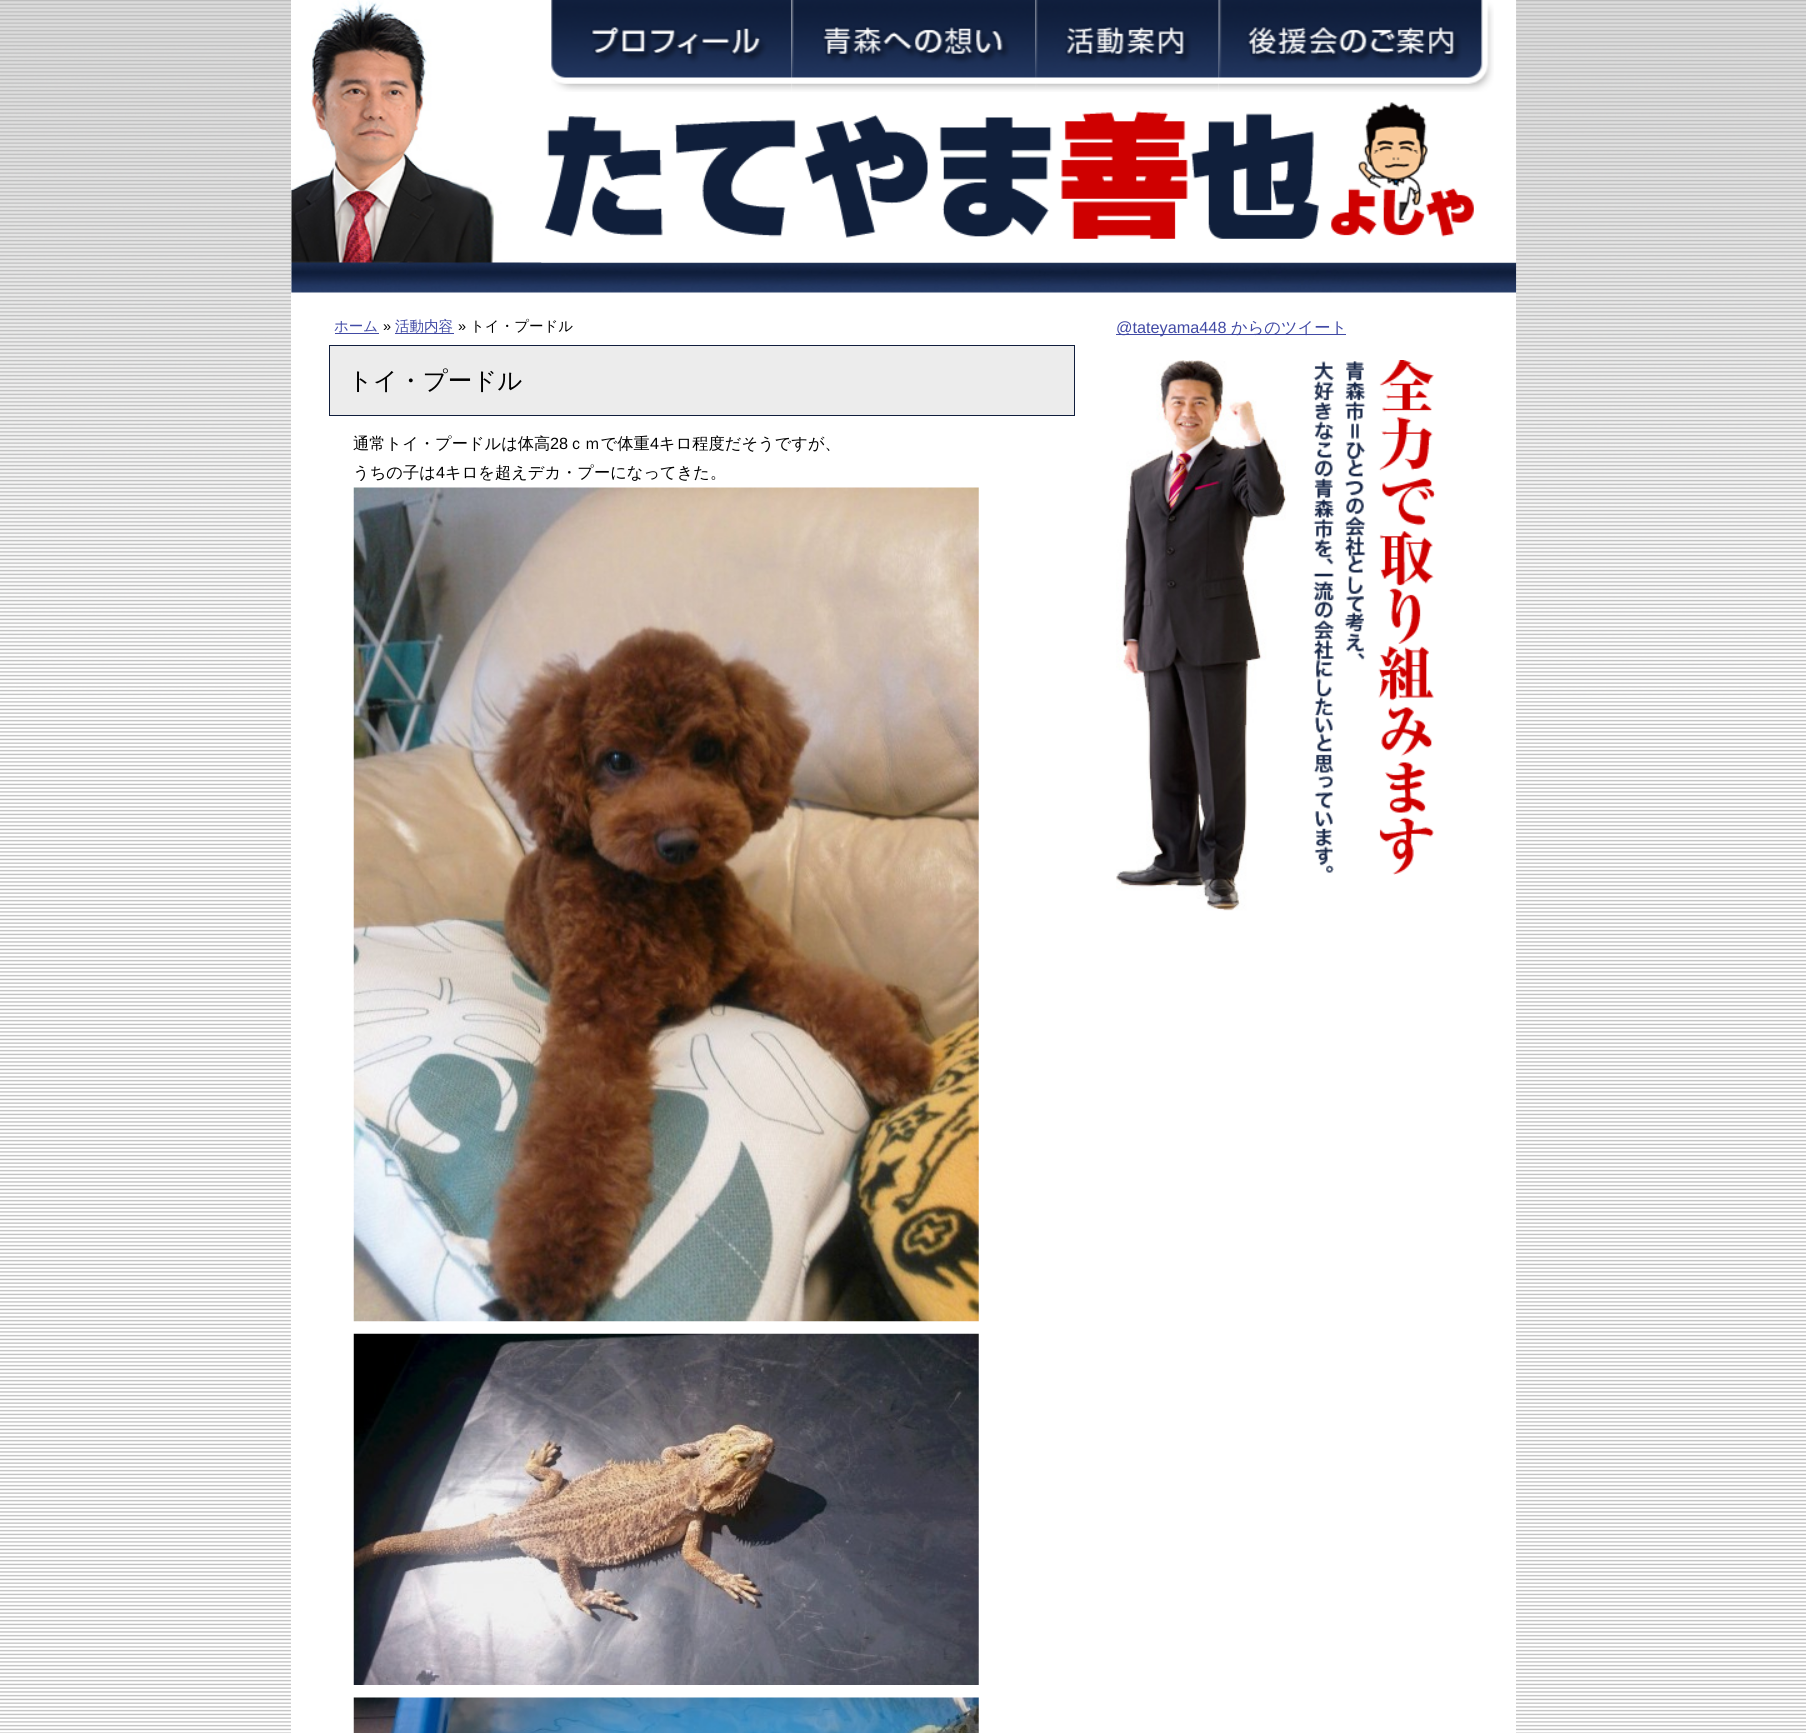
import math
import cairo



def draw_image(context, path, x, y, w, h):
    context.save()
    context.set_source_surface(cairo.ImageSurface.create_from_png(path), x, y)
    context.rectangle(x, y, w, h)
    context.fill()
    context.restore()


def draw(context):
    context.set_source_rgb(1, 1, 1)
    context.paint()
    draw_image(context, "images/1.png", 0, 697, 1806, 1036)
    draw_image(context, "images/2.png", 0, 0, 1806, 698)
    context.set_source_rgb(1, 1, 1)
    context.rectangle(291, 0, 1225, 1733)
    context.fill()
    draw_image(context, "images/3.png", 291, 0, 1226, 293)
    draw_image(context, "images/4.png", 551, 0, 241, 92)
    draw_image(context, "images/5.png", 791, 0, 244, 92)
    draw_image(context, "images/6.png", 1035, 0, 184, 92)
    draw_image(context, "images/7.png", 1218, 0, 276, 92)
    draw_image(context, "images/8.png", 541, 102, 975, 161)
    context.set_source_rgb(65 / 255, 74 / 255, 165 / 255)
    context.rectangle(335, 333, 44, 1)
    context.fill()
    context.rectangle(395, 333, 59, 1)
    context.fill()
    context.set_source_rgb(236 / 255, 236 / 255, 236 / 255)
    context.rectangle(329.5, 345.5, 745, 70)
    context.fill_preserve()
    context.set_source_rgb(16 / 255, 30 / 255, 61 / 255)
    context.set_line_width(1)
    context.stroke()
    draw_image(context, "images/9.png", 353, 487, 626, 835)
    draw_image(context, "images/10.png", 353, 1333, 626, 352)
    draw_image(context, "images/11.png", 353, 1697, 626, 36)
    context.set_source_rgb(65 / 255, 74 / 255, 165 / 255)
    context.rectangle(1116, 334, 230, 1)
    context.fill()
    draw_image(context, "images/12.png", 1116, 360, 170, 551)
    draw_image(context, "images/13.png", 1313, 361, 53, 512)
    draw_image(context, "images/14.png", 1378, 360, 58, 515)
    context.select_font_face("WenQuanYi Zen Hei Medium")
    context.set_font_size(14.5)
    context.move_to(334, 331)
    context.show_text("ホーム")
    context.select_font_face("Liberation Sans")
    context.set_source_rgb(0, 0, 0)
    context.move_to(383, 331)
    context.show_text("»")
    context.select_font_face("WenQuanYi Zen Hei Medium")
    context.set_source_rgb(65 / 255, 74 / 255, 165 / 255)
    context.move_to(395, 331)
    context.show_text("活動内容")
    context.select_font_face("Liberation Sans")
    context.set_source_rgb(0, 0, 0)
    context.move_to(458, 331)
    context.show_text("»")
    context.select_font_face("WenQuanYi Zen Hei Medium")
    context.move_to(470, 331)
    context.show_text("トイ・プードル")
    context.set_font_size(24.5)
    context.move_to(348, 389)
    context.show_text("トイ・プードル")
    context.set_font_size(16.25)
    context.move_to(353, 449)
    context.show_text("通常トイ・プードルは体高")
    context.select_font_face("Liberation Sans")
    context.move_to(550, 449)
    context.show_text("28")
    context.select_font_face("WenQuanYi Zen Hei Medium")
    context.move_to(568, 449)
    context.show_text("ｃｍで体重")
    context.select_font_face("Liberation Sans")
    context.move_to(650, 449)
    context.show_text("4")
    context.select_font_face("WenQuanYi Zen Hei Medium")
    context.move_to(659, 449)
    context.show_text("キロ程度だそうですが、")
    context.move_to(353, 478)
    context.show_text("うちの子は")
    context.select_font_face("Liberation Sans")
    context.move_to(436, 478)
    context.show_text("4")
    context.select_font_face("WenQuanYi Zen Hei Medium")
    context.move_to(445, 478)
    context.show_text("キロを超えデカ・プーになってきた。")
    context.select_font_face("Liberation Sans")
    context.set_source_rgb(65 / 255, 74 / 255, 165 / 255)
    context.move_to(1116, 333)
    context.show_text("@tateyama448")
    context.select_font_face("WenQuanYi Zen Hei Medium")
    context.move_to(1231, 333)
    context.show_text("からのツイート")


surface = cairo.ImageSurface(cairo.Format.RGB24, 1806, 1733)
context = cairo.Context(surface)
options = cairo.FontOptions()
options.set_hint_metrics(cairo.HintMetrics.OFF)
options.set_hint_style(cairo.HintStyle.NONE)
context.set_font_options(options)
context.set_miter_limit(4)
draw(context)
surface.write_to_png("out.png")
